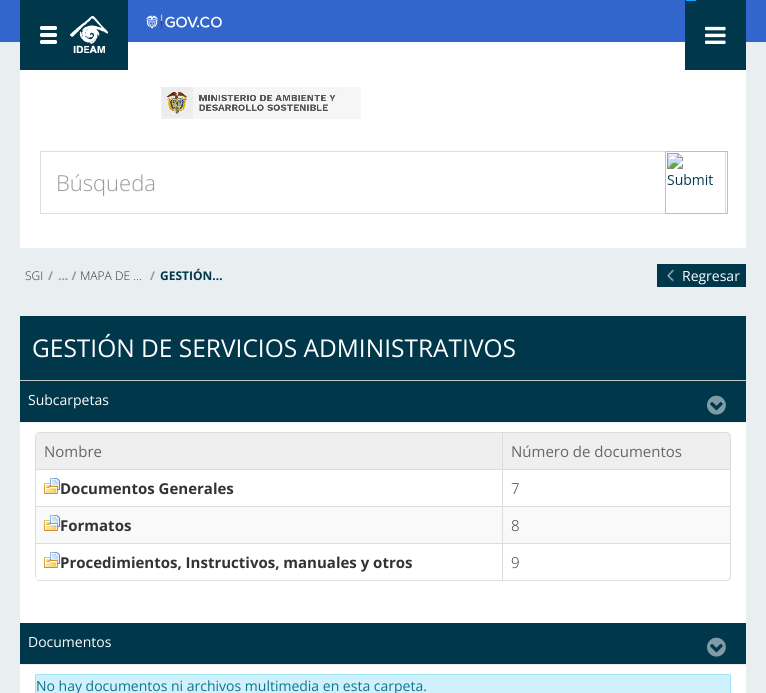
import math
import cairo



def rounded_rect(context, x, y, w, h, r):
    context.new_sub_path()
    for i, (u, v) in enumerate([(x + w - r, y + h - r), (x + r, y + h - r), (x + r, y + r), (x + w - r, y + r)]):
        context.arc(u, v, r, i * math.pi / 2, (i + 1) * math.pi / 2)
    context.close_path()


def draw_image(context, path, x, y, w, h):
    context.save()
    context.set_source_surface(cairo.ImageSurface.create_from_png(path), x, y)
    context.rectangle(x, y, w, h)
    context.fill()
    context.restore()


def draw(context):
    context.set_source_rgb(233 / 255, 238 / 255, 241 / 255)
    context.paint()
    context.set_source_rgb(1, 1, 1)
    context.rectangle(20, 42, 726, 206)
    context.fill()
    context.set_source_rgb(51 / 255, 102 / 255, 204 / 255)
    context.rectangle(0, 0, 766, 42)
    context.fill()
    draw_image(context, "images/1.png", 146, 14, 76, 16)
    draw_image(context, "images/2.png", 20, 0, 108, 70)
    context.set_source_rgb(0, 55 / 255, 74 / 255)
    context.rectangle(685, 0, 61, 70)
    context.fill()
    context.set_source_rgb(0, 174 / 255, 1)
    context.rectangle(686, 0, 10, 1)
    context.fill()
    draw_image(context, "images/3.png", 705, 26, 21, 18)
    draw_image(context, "images/4.png", 161, 87, 200, 32)
    context.rectangle(40.5, 151.5, 685, 62)
    context.set_source_rgb(221 / 255, 221 / 255, 221 / 255)
    context.set_line_width(1)
    context.stroke()
    draw_image(context, "images/5.png", 665, 151, 63, 63)
    context.set_source_rgb(0, 55 / 255, 75 / 255)
    context.rectangle(657, 264, 89, 23)
    context.fill()
    draw_image(context, "images/6.png", 667, 269, 7, 13)
    context.set_source_rgb(1, 1, 1)
    context.rectangle(20, 423, 726, 270)
    context.fill()
    context.set_source_rgb(200 / 255, 201 / 255, 202 / 255)
    context.rectangle(20, 380, 726, 1)
    context.fill()
    context.set_source_rgb(0, 55 / 255, 74 / 255)
    context.rectangle(20, 316, 726, 64)
    context.fill()
    context.rectangle(20, 381, 726, 41)
    context.fill()
    draw_image(context, "images/7.png", 707, 395, 19, 20)
    context.set_source_rgb(238 / 255, 238 / 255, 238 / 255)
    context.rectangle(20, 422, 726, 1)
    context.fill()
    context.set_source_rgb(221 / 255, 221 / 255, 221 / 255)
    context.set_fill_rule(cairo.FillRule.EVEN_ODD)
    context.new_path()
    context.move_to(40, 432)
    context.line_to(726, 432)
    context.curve_to(729, 432, 731, 434, 731, 437)
    context.line_to(731, 576)
    context.curve_to(731, 579, 729, 581, 726, 581)
    context.line_to(40, 581)
    context.curve_to(37, 581, 35, 579, 35, 576)
    context.line_to(35, 437)
    context.curve_to(35, 434, 37, 432, 40, 432)
    context.close_path()
    context.move_to(40, 433)
    context.line_to(726, 433)
    context.curve_to(728, 433, 730, 435, 730, 437)
    context.line_to(730, 576)
    context.curve_to(730, 578, 728, 580, 726, 580)
    context.line_to(40, 580)
    context.curve_to(37, 580, 35, 578, 35, 576)
    context.line_to(35, 437)
    context.curve_to(35, 435, 37, 433, 40, 433)
    context.close_path()
    context.fill()
    context.set_source_rgb(240 / 255, 239 / 255, 239 / 255)
    context.set_fill_rule(cairo.FillRule.WINDING)
    context.new_path()
    context.move_to(40, 433)
    context.curve_to(37, 433, 35, 435, 35, 437)
    context.line_to(35, 469)
    context.line_to(502, 469)
    context.line_to(502, 433)
    context.close_path()
    context.fill()
    context.set_source_rgb(221 / 255, 221 / 255, 221 / 255)
    context.new_path()
    context.move_to(35, 437)
    context.line_to(35, 469)
    context.line_to(36, 469)
    context.line_to(36, 434.5)
    context.curve_to(35.5, 435.5, 35, 436, 35, 437)
    context.close_path()
    context.fill()
    context.set_source_rgb(240 / 255, 239 / 255, 239 / 255)
    context.new_path()
    context.move_to(502, 433)
    context.line_to(502, 469)
    context.line_to(730, 469)
    context.line_to(730, 437)
    context.curve_to(730, 435, 728, 433, 726, 433)
    context.close_path()
    context.fill()
    context.set_source_rgb(221 / 255, 221 / 255, 221 / 255)
    context.rectangle(502, 433, 1, 36)
    context.fill()
    context.rectangle(35, 469, 695, 1)
    context.fill()
    context.rectangle(35, 469, 1, 37)
    context.fill()
    draw_image(context, "images/8.png", 44, 478, 16, 16)
    context.rectangle(502, 469, 1, 37)
    context.fill()
    context.set_source_rgb(249 / 255, 249 / 255, 249 / 255)
    context.rectangle(36, 507, 466, 36)
    context.fill()
    context.set_source_rgb(221 / 255, 221 / 255, 221 / 255)
    context.rectangle(35, 506, 695, 1)
    context.fill()
    context.rectangle(35, 506, 1, 37)
    context.fill()
    draw_image(context, "images/9.png", 44, 515, 16, 16)
    context.set_source_rgb(249 / 255, 249 / 255, 249 / 255)
    context.rectangle(503, 507, 227, 36)
    context.fill()
    context.set_source_rgb(221 / 255, 221 / 255, 221 / 255)
    context.rectangle(502, 506, 1, 37)
    context.fill()
    context.set_source_rgb(1, 1, 1)
    context.new_path()
    context.move_to(35, 543)
    context.line_to(35, 576)
    context.curve_to(35, 578, 37, 580, 40, 580)
    context.line_to(502, 580)
    context.line_to(502, 543)
    context.close_path()
    context.fill()
    context.set_source_rgb(221 / 255, 221 / 255, 221 / 255)
    context.rectangle(35, 543, 467, 1)
    context.fill()
    context.new_path()
    context.move_to(35, 543)
    context.line_to(35, 576)
    context.curve_to(35, 577, 35.5, 577.5, 36, 578.5)
    context.line_to(36, 543)
    context.close_path()
    context.fill()
    draw_image(context, "images/8.png", 44, 552, 16, 16)
    context.set_source_rgb(1, 1, 1)
    context.new_path()
    context.move_to(502, 543)
    context.line_to(502, 580)
    context.line_to(726, 580)
    context.curve_to(728, 580, 730, 578, 730, 576)
    context.line_to(730, 543)
    context.close_path()
    context.fill()
    context.set_source_rgb(221 / 255, 221 / 255, 221 / 255)
    context.rectangle(502, 543, 228, 1)
    context.fill()
    context.rectangle(502, 543, 1, 37)
    context.fill()
    context.set_source_rgb(0, 55 / 255, 74 / 255)
    context.rectangle(20, 623, 726, 41)
    context.fill()
    draw_image(context, "images/7.png", 707, 637, 19, 20)
    context.set_source_rgb(238 / 255, 238 / 255, 238 / 255)
    context.rectangle(20, 664, 726, 1)
    context.fill()
    context.set_source_rgb(206 / 255, 241 / 255, 252 / 255)
    rounded_rect(context, 35.5, 674.5, 695, 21, 1.5)
    context.fill_preserve()
    context.set_source_rgb(158 / 255, 227 / 255, 249 / 255)
    context.stroke()
    context.select_font_face("Open Sans Light")
    context.set_font_size(22)
    context.set_source_rgb(153 / 255, 153 / 255, 153 / 255)
    context.move_to(56, 191)
    context.show_text("Búsqueda")
    context.set_font_size(12)
    context.set_source_rgb(51 / 255, 51 / 255, 51 / 255)
    context.move_to(25, 280)
    context.show_text("SGI")
    context.select_font_face("Open Sans", cairo.FontSlant.NORMAL, cairo.FontWeight.BOLD)
    context.set_source_rgb(153 / 255, 153 / 255, 153 / 255)
    context.move_to(48, 280)
    context.show_text("/")
    context.move_to(58, 280)
    context.show_text("... /")
    context.select_font_face("Open Sans Light")
    context.set_source_rgb(51 / 255, 51 / 255, 51 / 255)
    context.move_to(80, 280)
    context.show_text("MAPA DE …")
    context.select_font_face("Open Sans", cairo.FontSlant.NORMAL, cairo.FontWeight.BOLD)
    context.set_source_rgb(153 / 255, 153 / 255, 153 / 255)
    context.move_to(150, 280)
    context.show_text("/")
    context.set_source_rgb(0, 55 / 255, 74 / 255)
    context.move_to(160, 280)
    context.show_text("GESTIÓN…")
    context.select_font_face("Open Sans")
    context.set_font_size(14)
    context.set_source_rgb(1, 1, 1)
    context.move_to(682, 281)
    context.show_text("Regresar")
    context.set_font_size(24.5)
    context.move_to(32, 357)
    context.show_text("GESTIÓN DE SERVICIOS ADMINISTRATIVOS")
    context.set_font_size(14)
    context.move_to(28, 405)
    context.show_text("Subcarpetas")
    context.set_font_size(15)
    context.set_source_rgb(102 / 255, 102 / 255, 102 / 255)
    context.move_to(44, 457)
    context.show_text("Nombre")
    context.move_to(511, 457)
    context.show_text("Número de documentos")
    context.select_font_face("Open Sans", cairo.FontSlant.NORMAL, cairo.FontWeight.BOLD)
    context.set_source_rgb(51 / 255, 51 / 255, 51 / 255)
    context.move_to(60, 494)
    context.show_text("Documentos Generales")
    context.select_font_face("Open Sans Light")
    context.move_to(511, 494)
    context.show_text("7")
    context.select_font_face("Open Sans", cairo.FontSlant.NORMAL, cairo.FontWeight.BOLD)
    context.move_to(60, 531)
    context.show_text("Formatos")
    context.select_font_face("Open Sans Light")
    context.move_to(511, 531)
    context.show_text("8")
    context.select_font_face("Open Sans", cairo.FontSlant.NORMAL, cairo.FontWeight.BOLD)
    context.move_to(60, 568)
    context.show_text("Procedimientos, Instructivos, manuales y otros")
    context.select_font_face("Open Sans Light")
    context.move_to(511, 568)
    context.show_text("9")
    context.select_font_face("Open Sans")
    context.set_font_size(14)
    context.set_source_rgb(1, 1, 1)
    context.move_to(28, 647)
    context.show_text("Documentos")
    context.set_source_rgb(18 / 255, 113 / 255, 143 / 255)
    context.move_to(36, 691)
    context.show_text("No hay documentos ni archivos multimedia en esta carpeta.")


surface = cairo.ImageSurface(cairo.Format.RGB24, 766, 693)
context = cairo.Context(surface)
options = cairo.FontOptions()
options.set_hint_metrics(cairo.HintMetrics.OFF)
options.set_hint_style(cairo.HintStyle.NONE)
context.set_font_options(options)
context.set_miter_limit(4)
draw(context)
surface.write_to_png("out.png")
